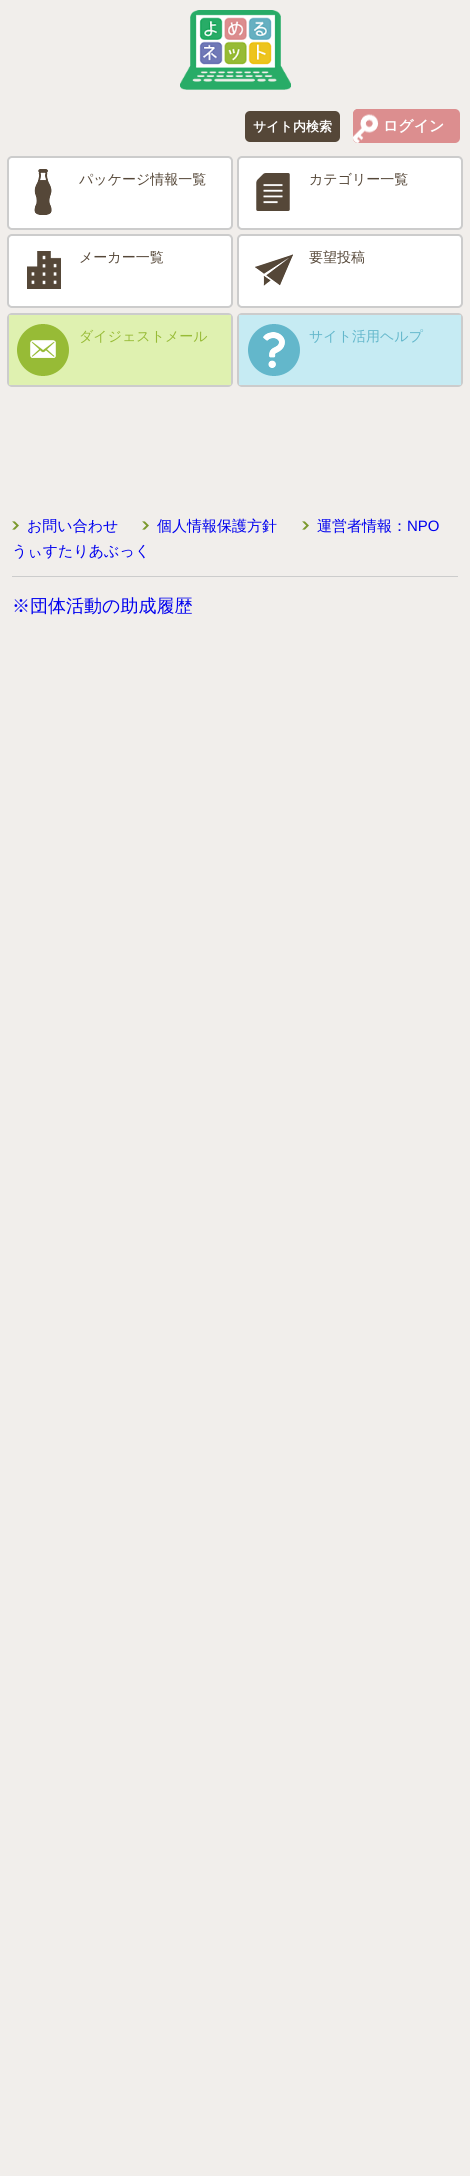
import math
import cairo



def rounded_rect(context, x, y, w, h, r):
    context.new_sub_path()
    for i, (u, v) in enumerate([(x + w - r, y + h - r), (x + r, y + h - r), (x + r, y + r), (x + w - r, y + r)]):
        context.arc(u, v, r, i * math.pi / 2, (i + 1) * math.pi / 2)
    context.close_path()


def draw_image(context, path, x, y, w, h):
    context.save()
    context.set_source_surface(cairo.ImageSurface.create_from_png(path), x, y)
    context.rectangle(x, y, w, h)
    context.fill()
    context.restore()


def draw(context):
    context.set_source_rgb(241 / 255, 238 / 255, 235 / 255)
    context.paint()
    draw_image(context, "images/1.png", 180, 10, 111, 80)
    context.set_source_rgb(85 / 255, 71 / 255, 56 / 255)
    rounded_rect(context, 245, 111, 95, 31, 5)
    context.fill()
    context.set_source_rgb(220 / 255, 142 / 255, 143 / 255)
    rounded_rect(context, 353, 109, 107, 34, 5)
    context.fill()
    draw_image(context, "images/2.png", 353, 109, 26, 34)
    context.set_source_rgb(1, 1, 1)
    rounded_rect(context, 8, 157, 224, 72, 4)
    context.fill_preserve()
    context.set_source_rgb(204 / 255, 204 / 255, 204 / 255)
    context.stroke()
    draw_image(context, "images/3.png", 34, 169, 18, 46)
    context.set_source_rgb(1, 1, 1)
    rounded_rect(context, 238, 157, 224, 72, 4)
    context.fill_preserve()
    context.set_source_rgb(204 / 255, 204 / 255, 204 / 255)
    context.stroke()
    draw_image(context, "images/4.png", 256, 173, 34, 38)
    context.set_source_rgb(1, 1, 1)
    rounded_rect(context, 8, 235, 224, 72, 4)
    context.fill_preserve()
    context.set_source_rgb(204 / 255, 204 / 255, 204 / 255)
    context.stroke()
    draw_image(context, "images/5.png", 27, 251, 34, 38)
    context.set_source_rgb(1, 1, 1)
    rounded_rect(context, 238, 235, 224, 72, 4)
    context.fill_preserve()
    context.set_source_rgb(204 / 255, 204 / 255, 204 / 255)
    context.stroke()
    draw_image(context, "images/6.png", 255, 254, 38, 32)
    rounded_rect(context, 8, 314, 224, 72, 4)
    context.stroke()
    context.set_source_rgb(223 / 255, 241 / 255, 176 / 255)
    context.rectangle(9, 315, 222, 70)
    context.fill()
    draw_image(context, "images/7.png", 17, 324, 52, 52)
    rounded_rect(context, 238, 314, 224, 72, 4)
    context.set_source_rgb(204 / 255, 204 / 255, 204 / 255)
    context.stroke()
    context.set_source_rgb(198 / 255, 235 / 255, 243 / 255)
    context.rectangle(239, 315, 222, 70)
    context.fill()
    draw_image(context, "images/8.png", 248, 324, 52, 52)
    context.set_source_rgb(204 / 255, 204 / 255, 204 / 255)
    context.rectangle(12, 576, 446, 1)
    context.fill()
    draw_image(context, "images/9.png", 12, 521, 7, 9)
    draw_image(context, "images/9.png", 142, 521, 7, 9)
    draw_image(context, "images/9.png", 302, 521, 7, 9)
    context.select_font_face("WenQuanYi Zen Hei", cairo.FontSlant.NORMAL, cairo.FontWeight.BOLD)
    context.set_font_size(13)
    context.set_source_rgb(1, 1, 1)
    context.move_to(253, 131)
    context.show_text("サイト内検索")
    context.set_font_size(15)
    context.move_to(383, 131)
    context.show_text("ログイン")
    context.select_font_face("WenQuanYi Zen Hei Medium")
    context.set_font_size(14)
    context.set_source_rgb(85 / 255, 71 / 255, 56 / 255)
    context.move_to(79, 184)
    context.show_text("パッケージ情報一覧")
    context.move_to(309, 184)
    context.show_text("カテゴリー一覧")
    context.move_to(79, 262)
    context.show_text("メーカー一覧")
    context.move_to(309, 262)
    context.show_text("要望投稿")
    context.set_source_rgb(151 / 255, 187 / 255, 54 / 255)
    context.move_to(79, 341)
    context.show_text("ダイジェストメール")
    context.set_source_rgb(99 / 255, 183 / 255, 203 / 255)
    context.move_to(309, 341)
    context.show_text("サイト活用ヘルプ")
    context.set_font_size(15)
    context.set_source_rgb(0, 0, 238 / 255)
    context.move_to(27, 531)
    context.show_text("お問い合わせ")
    context.move_to(157, 531)
    context.show_text("個人情報保護方針")
    context.move_to(317, 531)
    context.show_text("運営者情報：")
    context.select_font_face("Liberation Sans")
    context.move_to(407, 531)
    context.show_text("NPO")
    context.select_font_face("WenQuanYi Zen Hei Medium")
    context.move_to(12, 556)
    context.show_text("うぃすたりあぶっく")
    context.set_font_size(18)
    context.move_to(12, 612)
    context.show_text("※団体活動の助成履歴")


surface = cairo.ImageSurface(cairo.Format.RGB24, 470, 2176)
context = cairo.Context(surface)
options = cairo.FontOptions()
options.set_hint_metrics(cairo.HintMetrics.OFF)
options.set_hint_style(cairo.HintStyle.NONE)
context.set_font_options(options)
context.set_miter_limit(4)
draw(context)
surface.write_to_png("out.png")
